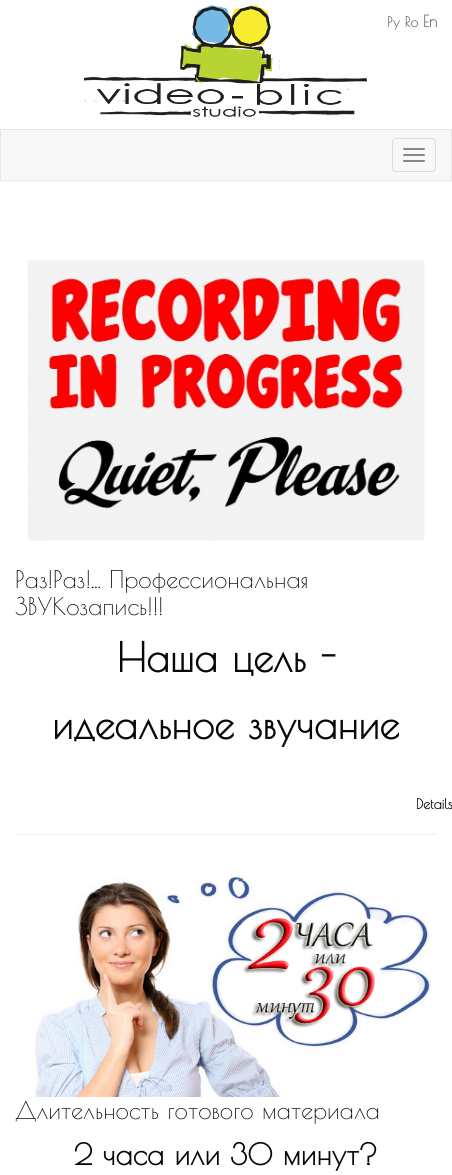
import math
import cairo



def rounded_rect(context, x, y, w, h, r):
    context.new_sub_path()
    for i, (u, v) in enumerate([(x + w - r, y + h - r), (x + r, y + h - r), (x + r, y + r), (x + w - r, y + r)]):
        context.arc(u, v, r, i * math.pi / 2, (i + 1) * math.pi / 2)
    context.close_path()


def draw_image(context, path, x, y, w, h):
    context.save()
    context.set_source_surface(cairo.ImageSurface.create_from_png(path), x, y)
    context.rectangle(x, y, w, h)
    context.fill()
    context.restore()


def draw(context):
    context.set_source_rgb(1, 1, 1)
    context.paint()
    draw_image(context, "images/1.png", 83, 4, 284, 113)
    context.set_source_rgb(248 / 255, 248 / 255, 248 / 255)
    context.rectangle(0.5, 129.5, 451, 51)
    context.fill_preserve()
    context.set_source_rgb(231 / 255, 231 / 255, 231 / 255)
    context.set_line_width(1)
    context.stroke()
    rounded_rect(context, 392.5, 138.5, 43, 33, 3.5)
    context.set_source_rgb(221 / 255, 221 / 255, 221 / 255)
    context.stroke()
    context.set_source_rgb(136 / 255, 136 / 255, 136 / 255)
    rounded_rect(context, 403, 148, 22, 2, 1)
    context.fill()
    rounded_rect(context, 403, 154, 22, 2, 1)
    context.fill()
    rounded_rect(context, 403, 160, 22, 2, 1)
    context.fill()
    draw_image(context, "images/2.png", 27, 260, 398, 281)
    context.set_source_rgb(238 / 255, 238 / 255, 238 / 255)
    context.rectangle(15, 834, 422, 1)
    context.fill()
    draw_image(context, "images/3.png", 34, 875, 397, 222)
    context.select_font_face("Poiret One", cairo.FontSlant.NORMAL, cairo.FontWeight.BOLD)
    context.set_font_size(14)
    context.set_source_rgb(119 / 255, 119 / 255, 119 / 255)
    context.move_to(387, 27)
    context.show_text("Ру Ro")
    context.set_font_size(16)
    context.move_to(423, 27)
    context.show_text("En")
    context.select_font_face("Poiret One")
    context.set_font_size(24)
    context.set_source_rgb(0, 0, 0)
    context.move_to(15, 588)
    context.show_text("Раз!Раз!... Профессиональная")
    context.move_to(15, 615)
    context.show_text("ЗВУКозапись!!!")
    context.select_font_face("Poiret One", cairo.FontSlant.NORMAL, cairo.FontWeight.BOLD)
    context.set_font_size(40)
    context.set_source_rgb(8 / 255, 8 / 255, 8 / 255)
    context.move_to(117, 672)
    context.show_text("Наша цель -")
    context.move_to(52, 739)
    context.show_text("идеальное звучание")
    context.set_font_size(14)
    context.set_source_rgb(0, 0, 0)
    context.move_to(416, 809)
    context.show_text("Details")
    context.select_font_face("Poiret One")
    context.set_font_size(24)
    context.move_to(15, 1119)
    context.show_text("Длительность готового материала")
    context.select_font_face("Poiret One", cairo.FontSlant.NORMAL, cairo.FontWeight.BOLD)
    context.set_font_size(29.25)
    context.set_source_rgb(8 / 255, 8 / 255, 8 / 255)
    context.move_to(74, 1165)
    context.show_text("2 часа или 30 минут?")


surface = cairo.ImageSurface(cairo.Format.RGB24, 452, 1175)
context = cairo.Context(surface)
options = cairo.FontOptions()
options.set_hint_metrics(cairo.HintMetrics.OFF)
options.set_hint_style(cairo.HintStyle.NONE)
context.set_font_options(options)
context.set_miter_limit(4)
draw(context)
surface.write_to_png("out.png")
